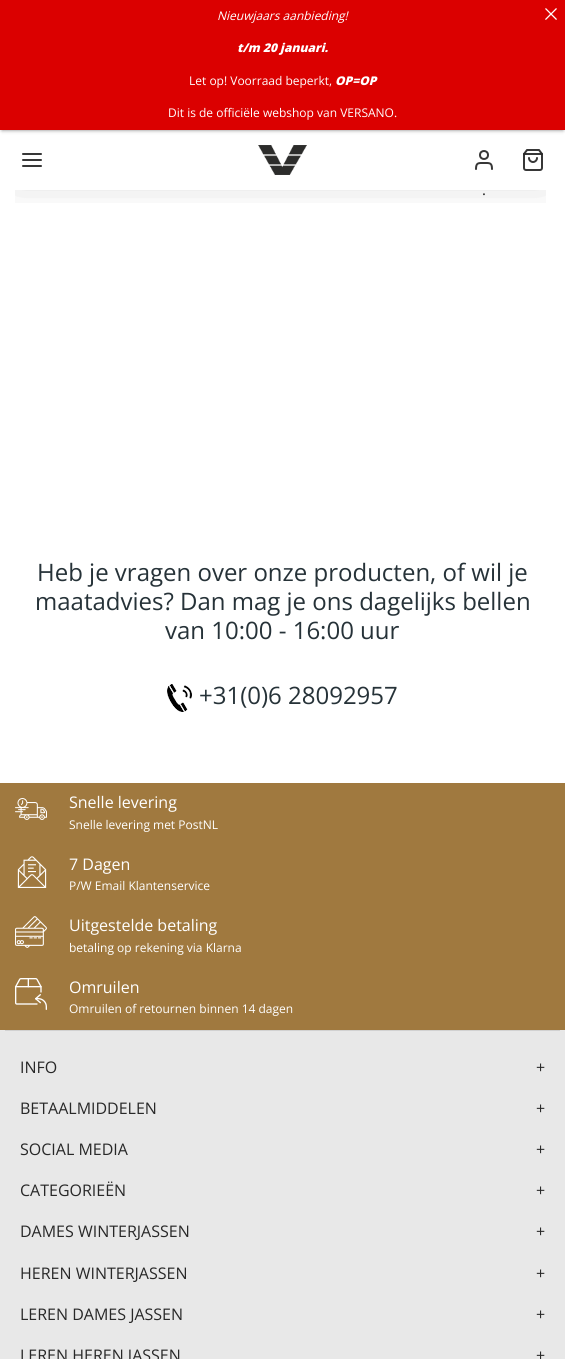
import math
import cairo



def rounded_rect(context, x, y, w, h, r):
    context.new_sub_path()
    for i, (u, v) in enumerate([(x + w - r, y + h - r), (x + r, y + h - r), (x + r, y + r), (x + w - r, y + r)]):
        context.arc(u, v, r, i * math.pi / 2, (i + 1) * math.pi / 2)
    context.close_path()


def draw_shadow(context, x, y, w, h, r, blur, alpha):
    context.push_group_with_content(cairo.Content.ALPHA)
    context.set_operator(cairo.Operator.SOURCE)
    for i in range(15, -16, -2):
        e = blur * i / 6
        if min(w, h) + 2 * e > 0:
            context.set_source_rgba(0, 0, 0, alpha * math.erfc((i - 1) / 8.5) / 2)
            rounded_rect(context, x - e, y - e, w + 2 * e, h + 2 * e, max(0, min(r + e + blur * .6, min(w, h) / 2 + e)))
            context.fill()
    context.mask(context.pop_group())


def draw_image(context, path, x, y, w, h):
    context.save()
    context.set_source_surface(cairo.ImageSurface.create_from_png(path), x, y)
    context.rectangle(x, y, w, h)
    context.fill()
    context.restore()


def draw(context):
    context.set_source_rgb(1, 1, 1)
    context.paint()
    context.set_source_rgb(0, 0, 0)
    draw_shadow(context, 2, 4, 561, 126, 0, 2, 0.5)
    context.save()
    context.rectangle(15, 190, 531, 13)
    context.clip()
    draw_shadow(context, 18, 152, 525, 20, 0, 22.5, 0.28)
    context.restore()
    context.set_source_rgb(219 / 255, 0, 0)
    context.rectangle(0, 0, 565, 130)
    context.fill()
    draw_image(context, "images/1.png", 545, 8, 12, 12)
    context.new_path()
    context.move_to(23, 160)
    context.line_to(41, 160)
    context.move_to(23, 154)
    context.line_to(41, 154)
    context.move_to(23, 166)
    context.line_to(41, 166)
    context.set_source_rgb(55 / 255, 55 / 255, 55 / 255)
    context.set_line_cap(cairo.LineCap.ROUND)
    context.set_line_join(cairo.LineJoin.ROUND)
    context.stroke()
    draw_image(context, "images/2.png", 258, 145, 49, 30)
    context.new_path()
    context.move_to(492, 169)
    context.curve_to(492, 162.5, 489.5, 163, 484, 163)
    context.curve_to(478.5, 163, 476, 162.5, 476, 169)
    context.stroke()
    context.arc(484, 155, 4, 0, 2 * math.pi)
    context.set_line_cap(cairo.LineCap.BUTT)
    context.set_line_join(cairo.LineJoin.MITER)
    context.stroke()
    draw_image(context, "images/3.png", 523, 149, 20, 22)
    context.set_source_rgb(232 / 255, 232 / 255, 232 / 255)
    context.rectangle(0, 1030, 565, 329)
    context.fill()
    draw_image(context, "images/4.png", 167, 684, 25, 28)
    context.set_source_rgb(160 / 255, 121 / 255, 63 / 255)
    context.rectangle(0, 783, 565, 247)
    context.fill()
    draw_image(context, "images/5.png", 15, 798, 32, 22)
    draw_image(context, "images/6.png", 17, 856, 30, 32)
    draw_image(context, "images/7.png", 15, 916, 32, 32)
    draw_image(context, "images/8.png", 15, 978, 32, 32)
    context.set_source_rgb(209 / 255, 209 / 255, 209 / 255)
    context.rectangle(5, 1030, 555, 1)
    context.fill()
    context.select_font_face("Open Sans", cairo.FontSlant.ITALIC)
    context.set_font_size(12)
    context.set_source_rgb(1, 1, 1)
    context.move_to(217, 20)
    context.show_text("Nieuwjaars aanbieding!")
    context.select_font_face("Open Sans ExtraBold", cairo.FontSlant.ITALIC)
    context.move_to(237, 52)
    context.show_text("t/m 20 januari.")
    context.select_font_face("Open Sans")
    context.move_to(189, 85)
    context.show_text("Let op! Voorraad beperkt,")
    context.select_font_face("Open Sans ExtraBold", cairo.FontSlant.ITALIC)
    context.move_to(335, 85)
    context.show_text("OP=OP")
    context.select_font_face("Open Sans")
    context.move_to(168, 117)
    context.show_text("Dit is de officiële webshop van VERSANO.")
    context.set_font_size(15)
    context.set_source_rgb(40 / 255, 40 / 255, 40 / 255)
    context.move_to(482, 195)
    context.show_text(".")
    context.set_font_size(24)
    context.set_source_rgb(38 / 255, 50 / 255, 56 / 255)
    context.move_to(37, 581)
    context.show_text("Heb je vragen over onze producten, of wil je")
    context.move_to(35, 610)
    context.show_text("maatadvies? Dan mag je ons dagelijks bellen")
    context.move_to(165, 639)
    context.show_text("van 10:00 - 16:00 uur")
    context.move_to(199, 704)
    context.show_text("+31(0)6 28092957")
    context.set_font_size(16)
    context.set_source_rgb(1, 1, 1)
    context.move_to(69, 808)
    context.show_text("Snelle levering")
    context.set_font_size(12)
    context.move_to(69, 829)
    context.show_text("Snelle levering met PostNL")
    context.set_font_size(16)
    context.move_to(69, 870)
    context.show_text("7 Dagen")
    context.set_font_size(12)
    context.move_to(69, 890)
    context.show_text("P/W Email Klantenservice")
    context.set_font_size(16)
    context.move_to(69, 931)
    context.show_text("Uitgestelde betaling")
    context.set_font_size(12)
    context.move_to(69, 952)
    context.show_text("betaling op rekening via Klarna")
    context.set_font_size(16)
    context.move_to(69, 993)
    context.show_text("Omruilen")
    context.set_font_size(12)
    context.move_to(69, 1013)
    context.show_text("Omruilen of retournen binnen 14 dagen")
    context.set_font_size(16)
    context.set_source_rgb(40 / 255, 40 / 255, 40 / 255)
    context.move_to(20, 1073)
    context.show_text("INFO")
    context.move_to(536, 1073)
    context.show_text("+")
    context.move_to(20, 1114)
    context.show_text("BETAALMIDDELEN")
    context.move_to(536, 1114)
    context.show_text("+")
    context.move_to(20, 1155)
    context.show_text("SOCIAL MEDIA")
    context.move_to(536, 1155)
    context.show_text("+")
    context.move_to(20, 1196)
    context.show_text("CATEGORIEËN")
    context.move_to(536, 1196)
    context.show_text("+")
    context.move_to(20, 1237)
    context.show_text("DAMES WINTERJASSEN")
    context.move_to(536, 1237)
    context.show_text("+")
    context.move_to(20, 1279)
    context.show_text("HEREN WINTERJASSEN")
    context.move_to(536, 1279)
    context.show_text("+")
    context.move_to(20, 1320)
    context.show_text("LEREN DAMES JASSEN")
    context.move_to(536, 1320)
    context.show_text("+")
    context.move_to(20, 1361)
    context.show_text("LEREN HEREN JASSEN")
    context.move_to(536, 1361)
    context.show_text("+")


surface = cairo.ImageSurface(cairo.Format.RGB24, 565, 1359)
context = cairo.Context(surface)
options = cairo.FontOptions()
options.set_hint_metrics(cairo.HintMetrics.OFF)
options.set_hint_style(cairo.HintStyle.NONE)
context.set_font_options(options)
context.set_miter_limit(4)
draw(context)
surface.write_to_png("out.png")
